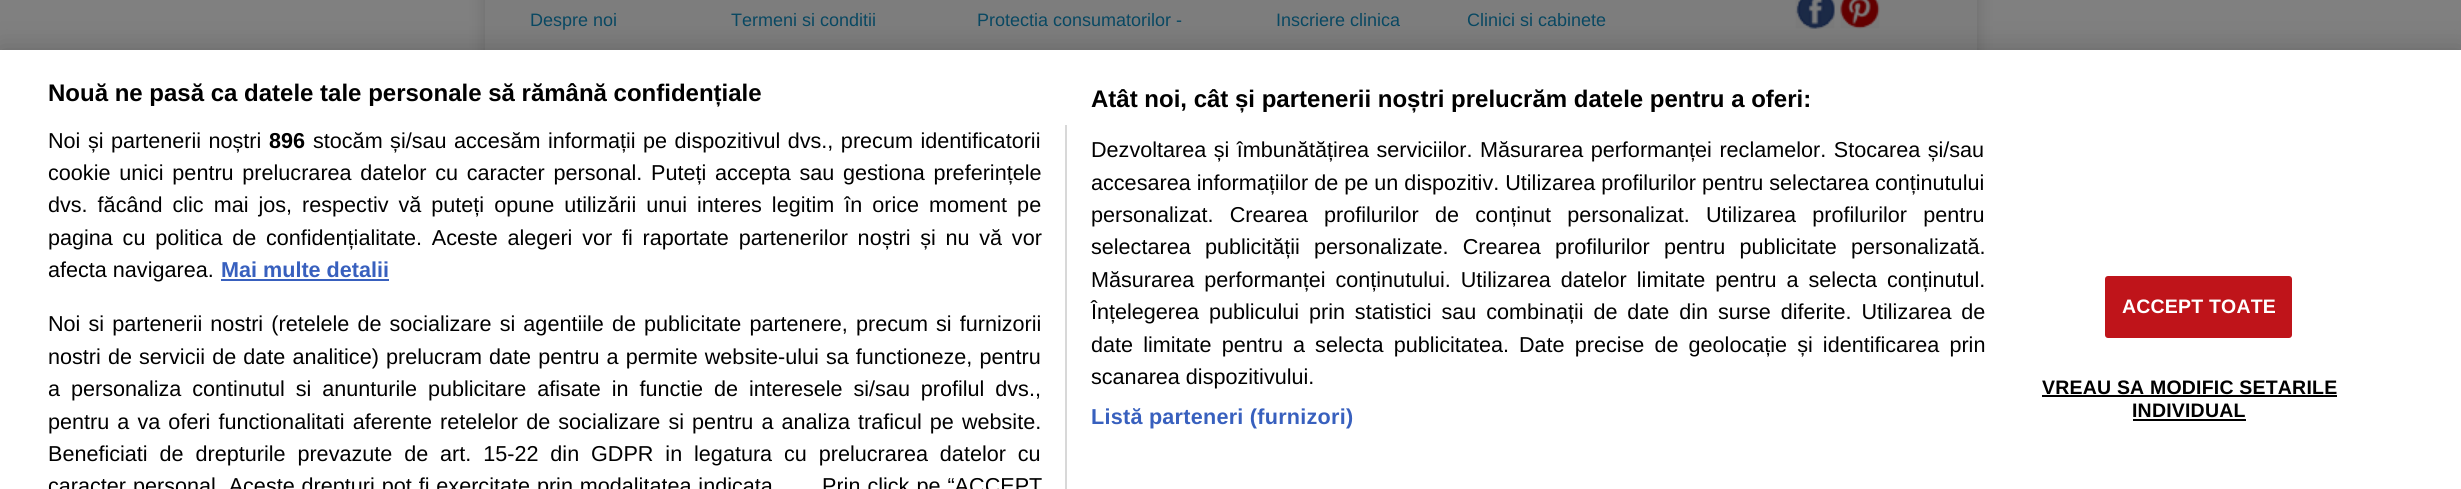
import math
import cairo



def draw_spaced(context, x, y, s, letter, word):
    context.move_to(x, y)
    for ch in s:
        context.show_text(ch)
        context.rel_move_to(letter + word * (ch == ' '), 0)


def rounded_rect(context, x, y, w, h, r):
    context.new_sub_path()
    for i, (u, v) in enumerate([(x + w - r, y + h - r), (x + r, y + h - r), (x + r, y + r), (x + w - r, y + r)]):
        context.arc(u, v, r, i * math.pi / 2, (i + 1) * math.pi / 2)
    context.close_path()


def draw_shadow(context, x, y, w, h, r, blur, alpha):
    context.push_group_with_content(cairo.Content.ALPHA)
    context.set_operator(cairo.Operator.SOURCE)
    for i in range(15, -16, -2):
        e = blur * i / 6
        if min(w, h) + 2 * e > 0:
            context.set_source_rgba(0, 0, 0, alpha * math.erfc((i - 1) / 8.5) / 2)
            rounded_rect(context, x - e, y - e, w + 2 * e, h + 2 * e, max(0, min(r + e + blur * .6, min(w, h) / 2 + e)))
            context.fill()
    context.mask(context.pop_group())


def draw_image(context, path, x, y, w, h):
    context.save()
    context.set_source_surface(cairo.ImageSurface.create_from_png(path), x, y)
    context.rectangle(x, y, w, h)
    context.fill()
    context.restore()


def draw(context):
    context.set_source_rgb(128 / 255, 128 / 255, 128 / 255)
    context.paint()
    context.set_source_rgb(0, 0, 0)
    draw_shadow(context, 485, -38, 1492, 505, 11, 9, 0.15)
    context.set_source_rgb(125 / 255, 125 / 255, 125 / 255)
    context.rectangle(485, 0, 1492, 50)
    context.fill()
    draw_image(context, "images/1.png", 1795, 0, 40, 29)
    draw_image(context, "images/2.png", 1840, 0, 40, 29)
    context.set_source_rgb(0, 0, 0)
    draw_shadow(context, 0, 50, 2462, 439, 0, 13.5, 0.2)
    context.set_source_rgb(1, 1, 1)
    context.rectangle(0, 50, 2461, 439)
    context.fill()
    context.set_source_rgb(216 / 255, 216 / 255, 216 / 255)
    context.rectangle(1065, 125, 2, 364)
    context.fill()
    context.set_source_rgb(56 / 255, 96 / 255, 190 / 255)
    context.rectangle(221, 279, 168, 2)
    context.fill()
    context.set_source_rgb(191 / 255, 20 / 255, 26 / 255)
    rounded_rect(context, 2106, 277, 185, 60, 2)
    context.fill_preserve()
    context.stroke()
    context.set_source_rgb(0, 0, 0)
    context.rectangle(2042, 395, 295, 2)
    context.fill()
    context.rectangle(2133, 419, 113, 2)
    context.fill()
    context.select_font_face("Liberation Sans")
    context.set_font_size(18)
    context.set_source_rgb(9 / 255, 72 / 255, 98 / 255)
    context.move_to(530, 26)
    context.show_text("Despre noi")
    context.move_to(731, 26)
    context.show_text("Termeni si conditii")
    context.move_to(977, 26)
    context.show_text("Protectia consumatorilor -")
    context.move_to(1276, 26)
    context.show_text("Inscriere clinica")
    context.move_to(1467, 26)
    context.show_text("Clinici si cabinete")
    context.select_font_face("Liberation Sans", cairo.FontSlant.NORMAL, cairo.FontWeight.BOLD)
    context.set_font_size(24)
    context.set_source_rgb(0, 0, 0)
    context.move_to(48, 101)
    context.show_text("Nouă ne pasă ca datele tale personale să rămână confidențiale")
    context.move_to(1091, 107)
    context.show_text("Atât noi, cât și partenerii noștri prelucrăm datele pentru a oferi:")
    context.select_font_face("Liberation Sans")
    context.set_font_size(21.6)
    draw_spaced(context, 1091, 157, "Dezvoltarea și îmbunătățirea serviciilor. Măsurarea performanței reclamelor. Stocarea și/sau", 0, 1.5)
    context.move_to(1091, 190)
    context.show_text("accesarea informațiilor de pe un dispozitiv. Utilizarea profilurilor pentru selectarea conținutului")
    draw_spaced(context, 1091, 222, "personalizat. Crearea profilurilor de conținut personalizat. Utilizarea profilurilor pentru", 0, 10.25)
    draw_spaced(context, 1091, 254, "selectarea publicității personalizate. Crearea profilurilor pentru publicitate personalizată.", 0, 8.25)
    draw_spaced(context, 1091, 287, "Măsurarea performanței conținutului. Utilizarea datelor limitate pentru a selecta conținutul.", 0, 4)
    draw_spaced(context, 1091, 319, "Înțelegerea publicului prin statistici sau combinații de date din surse diferite. Utilizarea de", 0, 3.9)
    draw_spaced(context, 1091, 352, "date limitate pentru a selecta publicitatea. Date precise de geolocație și identificarea prin", 0, 4.1)
    context.move_to(1091, 384)
    context.show_text("scanarea dispozitivului.")
    context.select_font_face("Liberation Sans", cairo.FontSlant.NORMAL, cairo.FontWeight.BOLD)
    context.set_source_rgb(56 / 255, 96 / 255, 190 / 255)
    draw_spaced(context, 1091, 424, "Listă parteneri (furnizori)", 0.25, 0)
    context.select_font_face("Liberation Sans")
    context.set_source_rgb(0, 0, 0)
    draw_spaced(context, 48, 148, "Noi și partenerii noștri", 0, 1.5)
    context.select_font_face("Liberation Sans", cairo.FontSlant.NORMAL, cairo.FontWeight.BOLD)
    context.move_to(269, 148)
    context.show_text("896")
    context.select_font_face("Liberation Sans")
    draw_spaced(context, 313, 148, "stocăm și/sau accesăm informații pe dispozitivul dvs., precum identificatorii", 0, 1.5)
    draw_spaced(context, 48, 180, "cookie unici pentru prelucrarea datelor cu caracter personal. Puteți accepta sau gestiona preferințele", 0, 2.75)
    draw_spaced(context, 48, 212, "dvs. făcând clic mai jos, respectiv vă puteți opune utilizării unui interes legitim în orice moment pe", 0, 4)
    draw_spaced(context, 48, 245, "pagina cu politica de confidențialitate. Aceste alegeri vor fi raportate partenerilor noștri și nu vă vor", 0, 3.75)
    context.move_to(48, 277)
    context.show_text("afecta navigarea.")
    context.select_font_face("Liberation Sans", cairo.FontSlant.NORMAL, cairo.FontWeight.BOLD)
    context.set_source_rgb(56 / 255, 96 / 255, 190 / 255)
    context.move_to(221, 277)
    context.show_text("Mai multe detalii")
    context.select_font_face("Liberation Sans")
    context.set_source_rgb(0, 0, 0)
    draw_spaced(context, 48, 331, "Noi si partenerii nostri (retelele de socializare si agentiile de publicitate partenere, precum si furnizorii", 0, 2.1)
    draw_spaced(context, 48, 364, "nostri de servicii de date analitice) prelucram date pentru a permite website-ului sa functioneze, pentru", 0, 1.1)
    draw_spaced(context, 48, 396, "a personaliza continutul si anunturile publicitare afisate in functie de interesele si/sau profilul dvs.,", 0, 4.9)
    draw_spaced(context, 48, 429, "pentru a va oferi functionalitati aferente retelelor de socializare si pentru a analiza traficul pe website.", 0, 2.1)
    draw_spaced(context, 48, 461, "Beneficiati de drepturile prevazute de art. 15-22 din GDPR in legatura cu prelucrarea datelor cu", 0, 5.9)
    draw_spaced(context, 48, 493, "caracter personal. Aceste drepturi pot fi exercitate prin modalitatea indicata", 0, 0.9)
    draw_spaced(context, 822, 493, "Prin click pe “ACCEPT", 0, 1)
    context.select_font_face("Liberation Sans", cairo.FontSlant.NORMAL, cairo.FontWeight.BOLD)
    context.set_font_size(19.5)
    context.set_source_rgb(1, 1, 1)
    draw_spaced(context, 2122, 313, "ACCEPT TOATE", 0.2, 0)
    context.set_source_rgb(0, 0, 0)
    draw_spaced(context, 2042, 394, "VREAU SA MODIFIC SETARILE", 0.2, 0)
    draw_spaced(context, 2132, 417, "INDIVIDUAL", 0.2, 0)


surface = cairo.ImageSurface(cairo.Format.RGB24, 2461, 489)
context = cairo.Context(surface)
options = cairo.FontOptions()
options.set_hint_metrics(cairo.HintMetrics.OFF)
options.set_hint_style(cairo.HintStyle.NONE)
context.set_font_options(options)
context.set_miter_limit(4)
draw(context)
surface.write_to_png("out.png")
